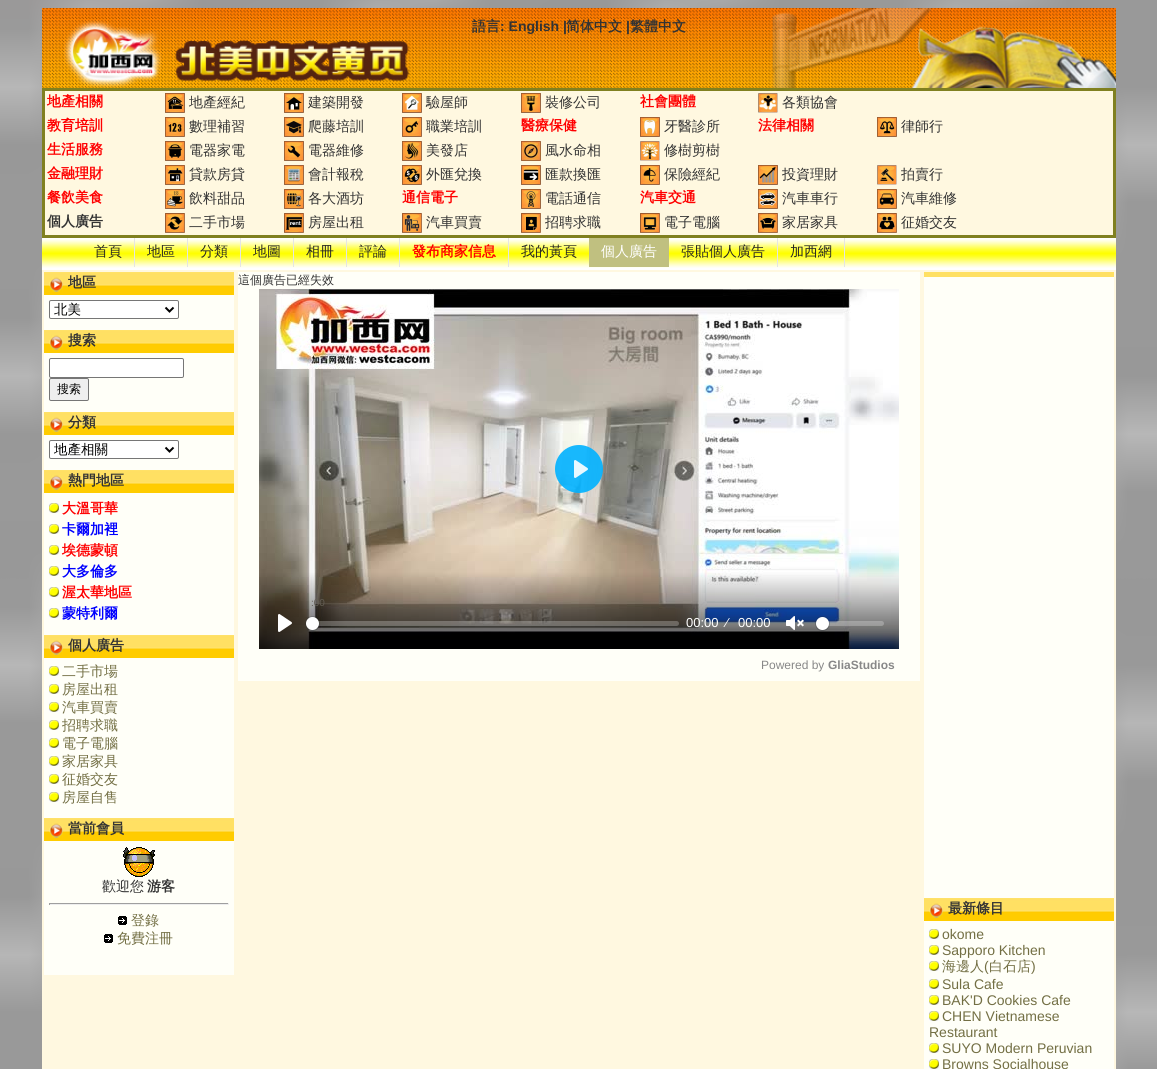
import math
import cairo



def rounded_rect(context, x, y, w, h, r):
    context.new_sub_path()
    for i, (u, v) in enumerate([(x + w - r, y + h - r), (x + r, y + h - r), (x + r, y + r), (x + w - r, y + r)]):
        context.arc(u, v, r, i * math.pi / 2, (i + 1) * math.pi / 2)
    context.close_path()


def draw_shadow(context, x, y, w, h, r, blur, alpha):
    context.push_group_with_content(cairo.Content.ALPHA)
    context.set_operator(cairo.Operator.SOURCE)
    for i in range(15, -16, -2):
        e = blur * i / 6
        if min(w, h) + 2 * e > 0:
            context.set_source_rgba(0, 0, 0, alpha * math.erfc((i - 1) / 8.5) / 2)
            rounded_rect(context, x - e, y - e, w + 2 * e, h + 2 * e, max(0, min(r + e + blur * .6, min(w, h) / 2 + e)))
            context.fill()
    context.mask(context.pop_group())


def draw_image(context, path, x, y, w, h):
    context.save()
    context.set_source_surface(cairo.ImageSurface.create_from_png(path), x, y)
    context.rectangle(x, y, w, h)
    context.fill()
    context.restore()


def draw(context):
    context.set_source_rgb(1, 1, 1)
    context.paint()
    draw_image(context, "images/1.png", 0, 0, 1157, 1069)
    context.set_source_rgb(1, 248 / 255, 224 / 255)
    context.rectangle(42, 91, 1074, 978)
    context.fill()
    draw_image(context, "images/2.png", 42, 8, 1074, 80)
    context.rectangle(43.5, 89.5, 1071, 147)
    context.set_source_rgb(128 / 255, 128 / 255, 32 / 255)
    context.set_line_width(3)
    context.stroke()
    draw_image(context, "images/3.png", 165, 93, 20, 20)
    draw_image(context, "images/4.png", 284, 93, 20, 20)
    draw_image(context, "images/5.png", 402, 93, 20, 20)
    draw_image(context, "images/6.png", 521, 93, 20, 20)
    draw_image(context, "images/7.png", 758, 93, 20, 20)
    draw_image(context, "images/8.png", 165, 117, 20, 20)
    draw_image(context, "images/9.png", 284, 117, 20, 20)
    draw_image(context, "images/10.png", 402, 117, 20, 20)
    draw_image(context, "images/11.png", 640, 117, 20, 20)
    draw_image(context, "images/12.png", 877, 117, 20, 20)
    draw_image(context, "images/13.png", 165, 141, 20, 20)
    draw_image(context, "images/14.png", 284, 141, 20, 20)
    draw_image(context, "images/15.png", 402, 141, 20, 20)
    draw_image(context, "images/16.png", 521, 141, 20, 20)
    draw_image(context, "images/17.png", 640, 141, 20, 20)
    draw_image(context, "images/18.png", 165, 165, 20, 20)
    draw_image(context, "images/19.png", 284, 165, 20, 20)
    draw_image(context, "images/20.png", 402, 165, 20, 20)
    draw_image(context, "images/21.png", 521, 165, 20, 20)
    draw_image(context, "images/22.png", 640, 165, 20, 20)
    draw_image(context, "images/23.png", 758, 165, 20, 20)
    draw_image(context, "images/24.png", 877, 165, 20, 20)
    draw_image(context, "images/25.png", 165, 189, 20, 20)
    draw_image(context, "images/26.png", 284, 189, 20, 20)
    draw_image(context, "images/27.png", 521, 189, 20, 20)
    draw_image(context, "images/28.png", 758, 189, 20, 20)
    draw_image(context, "images/29.png", 877, 189, 20, 20)
    draw_image(context, "images/30.png", 165, 213, 20, 20)
    draw_image(context, "images/31.png", 284, 213, 20, 20)
    draw_image(context, "images/32.png", 402, 213, 20, 20)
    draw_image(context, "images/33.png", 521, 213, 20, 20)
    draw_image(context, "images/34.png", 640, 213, 20, 20)
    draw_image(context, "images/35.png", 758, 213, 20, 20)
    draw_image(context, "images/36.png", 877, 213, 20, 20)
    draw_image(context, "images/37.png", 42, 238, 1074, 32)
    context.set_source_rgb(228 / 255, 229 / 255, 229 / 255)
    context.rectangle(134, 238, 1, 29)
    context.fill()
    context.rectangle(187, 238, 1, 29)
    context.fill()
    context.rectangle(240, 238, 1, 29)
    context.fill()
    context.rectangle(293, 238, 1, 29)
    context.fill()
    context.rectangle(346, 238, 1, 29)
    context.fill()
    context.rectangle(399, 238, 1, 29)
    context.fill()
    context.rectangle(508, 238, 1, 29)
    context.fill()
    context.set_source_rgb(192 / 255, 192 / 255, 128 / 255)
    context.rectangle(589, 238, 80, 29)
    context.fill()
    context.set_source_rgb(228 / 255, 229 / 255, 229 / 255)
    context.rectangle(777, 238, 1, 29)
    context.fill()
    context.rectangle(844, 238, 1, 29)
    context.fill()
    context.set_source_rgb(1, 1, 248 / 255)
    context.rectangle(44, 295, 190, 35)
    context.fill()
    draw_image(context, "images/38.png", 44, 272, 190, 23)
    context.set_source_rgb(1, 1, 1)
    rounded_rect(context, 49.5, 300.5, 129, 18, 1.5)
    context.fill_preserve()
    context.set_source_rgb(118 / 255, 118 / 255, 118 / 255)
    context.set_line_width(1)
    context.stroke()
    context.new_path()
    context.move_to(165.5, 307.5)
    context.line_to(169.5, 311.5)
    context.line_to(173.5, 307.5)
    context.set_source_rgb(0, 0, 0)
    context.set_line_width(2)
    context.stroke()
    context.set_source_rgb(1, 1, 248 / 255)
    context.rectangle(44, 353, 190, 59)
    context.fill()
    draw_image(context, "images/38.png", 44, 330, 190, 23)
    context.set_source_rgb(1, 1, 1)
    rounded_rect(context, 49.5, 358.5, 134, 19, 1.5)
    context.fill_preserve()
    context.set_source_rgb(118 / 255, 118 / 255, 118 / 255)
    context.set_line_width(1)
    context.stroke()
    context.set_source_rgb(239 / 255, 239 / 255, 239 / 255)
    rounded_rect(context, 49.5, 378.5, 39, 22, 1.5)
    context.fill_preserve()
    context.set_source_rgb(118 / 255, 118 / 255, 118 / 255)
    context.stroke()
    context.set_source_rgb(1, 1, 248 / 255)
    context.rectangle(44, 435, 190, 35)
    context.fill()
    draw_image(context, "images/38.png", 44, 412, 190, 23)
    context.set_source_rgb(1, 1, 1)
    rounded_rect(context, 49.5, 440.5, 129, 18, 1.5)
    context.fill_preserve()
    context.set_source_rgb(118 / 255, 118 / 255, 118 / 255)
    context.stroke()
    context.new_path()
    context.move_to(165.5, 447.5)
    context.line_to(169.5, 451.5)
    context.line_to(173.5, 447.5)
    context.set_source_rgb(0, 0, 0)
    context.set_line_width(2)
    context.stroke()
    context.set_source_rgb(1, 1, 248 / 255)
    context.rectangle(44, 493, 190, 142)
    context.fill()
    draw_image(context, "images/38.png", 44, 470, 190, 23)
    draw_image(context, "images/39.png", 49, 503, 10, 10)
    draw_image(context, "images/39.png", 49, 524, 10, 10)
    draw_image(context, "images/39.png", 49, 545, 10, 10)
    draw_image(context, "images/39.png", 49, 566, 10, 10)
    draw_image(context, "images/39.png", 49, 587, 10, 10)
    draw_image(context, "images/39.png", 49, 608, 10, 10)
    context.rectangle(44, 658, 190, 160)
    context.fill()
    draw_image(context, "images/38.png", 44, 635, 190, 23)
    draw_image(context, "images/39.png", 49, 666, 10, 10)
    draw_image(context, "images/39.png", 49, 684, 10, 10)
    draw_image(context, "images/39.png", 49, 702, 10, 10)
    draw_image(context, "images/39.png", 49, 720, 10, 10)
    draw_image(context, "images/39.png", 49, 738, 10, 10)
    draw_image(context, "images/39.png", 49, 756, 10, 10)
    draw_image(context, "images/39.png", 49, 774, 10, 10)
    draw_image(context, "images/39.png", 49, 792, 10, 10)
    context.rectangle(44, 841, 190, 134)
    context.fill()
    draw_image(context, "images/38.png", 44, 818, 190, 23)
    draw_image(context, "images/40.png", 123, 847, 32, 30)
    context.set_source_rgb(159 / 255, 159 / 255, 159 / 255)
    context.rectangle(49, 903, 180, 1)
    context.fill()
    context.set_source_rgb(238 / 255, 238 / 255, 238 / 255)
    context.rectangle(228, 903, 1, 2)
    context.fill()
    context.rectangle(49, 904, 180, 1)
    context.fill()
    context.set_source_rgb(159 / 255, 159 / 255, 159 / 255)
    context.rectangle(49, 903, 1, 2)
    context.fill()
    draw_image(context, "images/41.png", 118, 916, 9, 9)
    draw_image(context, "images/41.png", 104, 934, 9, 9)
    context.set_source_rgb(1, 1, 248 / 255)
    context.rectangle(238, 272, 682, 409)
    context.fill()
    draw_image(context, "images/42.png", 259, 289, 640, 360)
    context.set_source_rgba(0, 178 / 255, 1, 0.9)
    context.arc(579, 469, 24, 0, 2 * math.pi)
    context.fill()
    draw_image(context, "images/43.png", 574, 460, 14, 18)
    context.set_source_rgba(1, 1, 1, 0.25)
    rounded_rect(context, 306, 621, 373, 5, 2.5)
    context.fill()
    context.arc(312.5, 623.5, 7, 0, 2 * math.pi)
    context.set_source_rgba(35 / 255, 40 / 255, 47 / 255, 0.2)
    context.set_line_width(1)
    context.stroke()
    context.set_source_rgb(35 / 255, 40 / 255, 47 / 255)
    draw_shadow(context, 306, 618, 13, 13, 6.5, 0.5, 0.15)
    context.set_source_rgb(1, 1, 1)
    context.arc(312.5, 623.5, 6.5, 0, 2 * math.pi)
    context.fill()
    draw_image(context, "images/44.png", 278, 614, 14, 18)
    draw_image(context, "images/45.png", 786, 616, 18, 14)
    context.set_source_rgba(1, 1, 1, 0.25)
    rounded_rect(context, 816, 621, 68, 5, 2.5)
    context.fill()
    context.arc(822.5, 623.5, 7, 0, 2 * math.pi)
    context.set_source_rgba(35 / 255, 40 / 255, 47 / 255, 0.2)
    context.stroke()
    context.set_source_rgb(35 / 255, 40 / 255, 47 / 255)
    draw_shadow(context, 816, 618, 13, 13, 6.5, 0.5, 0.15)
    context.set_source_rgb(1, 1, 1)
    context.arc(822.5, 623.5, 6.5, 0, 2 * math.pi)
    context.fill()
    context.set_source_rgb(1, 1, 248 / 255)
    context.rectangle(924, 277, 190, 621)
    context.fill()
    context.set_source_rgb(1, 224 / 255, 99 / 255)
    context.rectangle(924, 272, 190, 5)
    context.fill()
    context.set_source_rgb(1, 1, 248 / 255)
    context.rectangle(924, 921, 190, 148)
    context.fill()
    draw_image(context, "images/38.png", 924, 898, 190, 23)
    draw_image(context, "images/39.png", 929, 929, 10, 10)
    draw_image(context, "images/39.png", 929, 945, 10, 10)
    draw_image(context, "images/39.png", 929, 961, 10, 10)
    draw_image(context, "images/39.png", 929, 979, 10, 10)
    draw_image(context, "images/39.png", 929, 995, 10, 10)
    draw_image(context, "images/39.png", 929, 1011, 10, 10)
    draw_image(context, "images/39.png", 929, 1043, 10, 10)
    draw_image(context, "images/39.png", 929, 1059, 10, 10)
    context.select_font_face("WenQuanYi Zen Hei", cairo.FontSlant.NORMAL, cairo.FontWeight.BOLD)
    context.set_font_size(14)
    context.set_source_rgb(51 / 255, 51 / 255, 51 / 255)
    context.move_to(472, 31)
    context.show_text("語言")
    context.select_font_face("Liberation Sans", cairo.FontSlant.NORMAL, cairo.FontWeight.BOLD)
    context.move_to(500, 31)
    context.show_text(": English |")
    context.select_font_face("WenQuanYi Zen Hei", cairo.FontSlant.NORMAL, cairo.FontWeight.BOLD)
    context.move_to(566, 31)
    context.show_text("简体中文")
    context.select_font_face("Liberation Sans", cairo.FontSlant.NORMAL, cairo.FontWeight.BOLD)
    context.move_to(626, 31)
    context.show_text("|")
    context.select_font_face("WenQuanYi Zen Hei", cairo.FontSlant.NORMAL, cairo.FontWeight.BOLD)
    context.move_to(630, 31)
    context.show_text("繁體中文")
    context.set_source_rgb(1, 0, 0)
    context.move_to(47, 106)
    context.show_text("地產相關")
    context.select_font_face("WenQuanYi Zen Hei Medium")
    context.set_source_rgb(51 / 255, 51 / 255, 51 / 255)
    context.move_to(189, 107)
    context.show_text("地產經紀")
    context.move_to(308, 107)
    context.show_text("建築開發")
    context.move_to(426, 107)
    context.show_text("驗屋師")
    context.move_to(545, 107)
    context.show_text("裝修公司")
    context.select_font_face("WenQuanYi Zen Hei", cairo.FontSlant.NORMAL, cairo.FontWeight.BOLD)
    context.set_source_rgb(1, 0, 0)
    context.move_to(640, 106)
    context.show_text("社會團體")
    context.select_font_face("WenQuanYi Zen Hei Medium")
    context.set_source_rgb(51 / 255, 51 / 255, 51 / 255)
    context.move_to(782, 107)
    context.show_text("各類協會")
    context.select_font_face("WenQuanYi Zen Hei", cairo.FontSlant.NORMAL, cairo.FontWeight.BOLD)
    context.set_source_rgb(1, 0, 0)
    context.move_to(47, 130)
    context.show_text("教育培訓")
    context.select_font_face("WenQuanYi Zen Hei Medium")
    context.set_source_rgb(51 / 255, 51 / 255, 51 / 255)
    context.move_to(189, 131)
    context.show_text("數理補習")
    context.move_to(308, 131)
    context.show_text("爬藤培訓")
    context.move_to(426, 131)
    context.show_text("職業培訓")
    context.select_font_face("WenQuanYi Zen Hei", cairo.FontSlant.NORMAL, cairo.FontWeight.BOLD)
    context.set_source_rgb(1, 0, 0)
    context.move_to(521, 130)
    context.show_text("醫療保健")
    context.select_font_face("WenQuanYi Zen Hei Medium")
    context.set_source_rgb(51 / 255, 51 / 255, 51 / 255)
    context.move_to(664, 131)
    context.show_text("牙醫診所")
    context.select_font_face("WenQuanYi Zen Hei", cairo.FontSlant.NORMAL, cairo.FontWeight.BOLD)
    context.set_source_rgb(1, 0, 0)
    context.move_to(758, 130)
    context.show_text("法律相關")
    context.select_font_face("WenQuanYi Zen Hei Medium")
    context.set_source_rgb(51 / 255, 51 / 255, 51 / 255)
    context.move_to(901, 131)
    context.show_text("律師行")
    context.select_font_face("WenQuanYi Zen Hei", cairo.FontSlant.NORMAL, cairo.FontWeight.BOLD)
    context.set_source_rgb(1, 0, 0)
    context.move_to(47, 154)
    context.show_text("生活服務")
    context.select_font_face("WenQuanYi Zen Hei Medium")
    context.set_source_rgb(51 / 255, 51 / 255, 51 / 255)
    context.move_to(189, 155)
    context.show_text("電器家電")
    context.move_to(308, 155)
    context.show_text("電器維修")
    context.move_to(426, 155)
    context.show_text("美發店")
    context.move_to(545, 155)
    context.show_text("風水命相")
    context.move_to(664, 155)
    context.show_text("修樹剪樹")
    context.select_font_face("WenQuanYi Zen Hei", cairo.FontSlant.NORMAL, cairo.FontWeight.BOLD)
    context.set_source_rgb(1, 0, 0)
    context.move_to(47, 178)
    context.show_text("金融理財")
    context.select_font_face("WenQuanYi Zen Hei Medium")
    context.set_source_rgb(51 / 255, 51 / 255, 51 / 255)
    context.move_to(189, 179)
    context.show_text("貸款房貸")
    context.move_to(308, 179)
    context.show_text("會計報稅")
    context.move_to(426, 179)
    context.show_text("外匯兌換")
    context.move_to(545, 179)
    context.show_text("匯款換匯")
    context.move_to(664, 179)
    context.show_text("保險經紀")
    context.move_to(782, 179)
    context.show_text("投資理財")
    context.move_to(901, 179)
    context.show_text("拍賣行")
    context.select_font_face("WenQuanYi Zen Hei", cairo.FontSlant.NORMAL, cairo.FontWeight.BOLD)
    context.set_source_rgb(1, 0, 0)
    context.move_to(47, 202)
    context.show_text("餐飲美食")
    context.select_font_face("WenQuanYi Zen Hei Medium")
    context.set_source_rgb(51 / 255, 51 / 255, 51 / 255)
    context.move_to(189, 203)
    context.show_text("飲料甜品")
    context.move_to(308, 203)
    context.show_text("各大酒坊")
    context.select_font_face("WenQuanYi Zen Hei", cairo.FontSlant.NORMAL, cairo.FontWeight.BOLD)
    context.set_source_rgb(1, 0, 0)
    context.move_to(402, 202)
    context.show_text("通信電子")
    context.select_font_face("WenQuanYi Zen Hei Medium")
    context.set_source_rgb(51 / 255, 51 / 255, 51 / 255)
    context.move_to(545, 203)
    context.show_text("電話通信")
    context.select_font_face("WenQuanYi Zen Hei", cairo.FontSlant.NORMAL, cairo.FontWeight.BOLD)
    context.set_source_rgb(1, 0, 0)
    context.move_to(640, 202)
    context.show_text("汽車交通")
    context.select_font_face("WenQuanYi Zen Hei Medium")
    context.set_source_rgb(51 / 255, 51 / 255, 51 / 255)
    context.move_to(782, 203)
    context.show_text("汽車車行")
    context.move_to(901, 203)
    context.show_text("汽車維修")
    context.select_font_face("WenQuanYi Zen Hei", cairo.FontSlant.NORMAL, cairo.FontWeight.BOLD)
    context.move_to(47, 226)
    context.show_text("個人廣告")
    context.select_font_face("WenQuanYi Zen Hei Medium")
    context.move_to(189, 227)
    context.show_text("二手市場")
    context.move_to(308, 227)
    context.show_text("房屋出租")
    context.move_to(426, 227)
    context.show_text("汽車買賣")
    context.move_to(545, 227)
    context.show_text("招聘求職")
    context.move_to(664, 227)
    context.show_text("電子電腦")
    context.move_to(782, 227)
    context.show_text("家居家具")
    context.move_to(901, 227)
    context.show_text("征婚交友")
    context.set_source_rgb(37 / 255, 37 / 255, 37 / 255)
    context.move_to(94, 256)
    context.show_text("首頁")
    context.move_to(147, 256)
    context.show_text("地區")
    context.move_to(200, 256)
    context.show_text("分類")
    context.move_to(253, 256)
    context.show_text("地圖")
    context.move_to(306, 256)
    context.show_text("相冊")
    context.move_to(359, 256)
    context.show_text("評論")
    context.select_font_face("WenQuanYi Zen Hei", cairo.FontSlant.NORMAL, cairo.FontWeight.BOLD)
    context.set_source_rgb(1, 0, 0)
    context.move_to(412, 256)
    context.show_text("發布商家信息")
    context.select_font_face("WenQuanYi Zen Hei Medium")
    context.set_source_rgb(37 / 255, 37 / 255, 37 / 255)
    context.move_to(521, 256)
    context.show_text("我的黃頁")
    context.set_source_rgb(1, 1, 1)
    context.move_to(601, 256)
    context.show_text("個人廣告")
    context.set_source_rgb(37 / 255, 37 / 255, 37 / 255)
    context.move_to(681, 256)
    context.show_text("張貼個人廣告")
    context.move_to(790, 256)
    context.show_text("加西網")
    context.select_font_face("WenQuanYi Zen Hei", cairo.FontSlant.NORMAL, cairo.FontWeight.BOLD)
    context.set_source_rgb(51 / 255, 51 / 255, 51 / 255)
    context.move_to(68, 287)
    context.show_text("地區")
    context.select_font_face("WenQuanYi Zen Hei Medium")
    context.set_font_size(13.5)
    context.set_source_rgb(0, 0, 0)
    context.move_to(54, 314)
    context.show_text("北美")
    context.select_font_face("WenQuanYi Zen Hei", cairo.FontSlant.NORMAL, cairo.FontWeight.BOLD)
    context.set_font_size(14)
    context.set_source_rgb(51 / 255, 51 / 255, 51 / 255)
    context.move_to(68, 345)
    context.show_text("搜索")
    context.select_font_face("WenQuanYi Zen Hei Medium")
    context.set_font_size(12)
    context.set_source_rgb(0, 0, 0)
    context.move_to(57, 393)
    context.show_text("搜索")
    context.select_font_face("WenQuanYi Zen Hei", cairo.FontSlant.NORMAL, cairo.FontWeight.BOLD)
    context.set_font_size(14)
    context.set_source_rgb(51 / 255, 51 / 255, 51 / 255)
    context.move_to(68, 427)
    context.show_text("分類")
    context.save()
    context.rectangle(54, 441, 108, 17)
    context.clip()
    context.select_font_face("WenQuanYi Zen Hei Medium")
    context.set_font_size(13.5)
    context.set_source_rgb(0, 0, 0)
    context.move_to(54, 454)
    context.show_text("地產相關")
    context.restore()
    context.move_to(68, 485)
    context.show_text("熱門地區")
    context.set_source_rgb(1, 0, 0)
    context.move_to(62, 513)
    context.show_text("大溫哥華")
    context.set_source_rgb(0, 0, 1)
    context.move_to(62, 534)
    context.show_text("卡爾加裡")
    context.set_source_rgb(1, 0, 0)
    context.move_to(62, 555)
    context.show_text("埃德蒙頓")
    context.set_source_rgb(0, 0, 1)
    context.move_to(62, 576)
    context.show_text("大多倫多")
    context.set_source_rgb(1, 0, 0)
    context.move_to(62, 597)
    context.show_text("渥太華地區")
    context.set_source_rgb(0, 0, 1)
    context.move_to(62, 618)
    context.show_text("蒙特利爾")
    context.set_source_rgb(51 / 255, 51 / 255, 51 / 255)
    context.move_to(68, 650)
    context.show_text("個人廣告")
    context.select_font_face("WenQuanYi Zen Hei Medium")
    context.set_source_rgb(115 / 255, 111 / 255, 68 / 255)
    context.move_to(62, 676)
    context.show_text("二手市場")
    context.move_to(62, 694)
    context.show_text("房屋出租")
    context.move_to(62, 712)
    context.show_text("汽車買賣")
    context.move_to(62, 730)
    context.show_text("招聘求職")
    context.move_to(62, 748)
    context.show_text("電子電腦")
    context.move_to(62, 766)
    context.show_text("家居家具")
    context.move_to(62, 784)
    context.show_text("征婚交友")
    context.move_to(62, 802)
    context.show_text("房屋自售")
    context.select_font_face("WenQuanYi Zen Hei", cairo.FontSlant.NORMAL, cairo.FontWeight.BOLD)
    context.set_source_rgb(51 / 255, 51 / 255, 51 / 255)
    context.move_to(68, 833)
    context.show_text("當前會員")
    context.select_font_face("WenQuanYi Zen Hei Medium")
    context.move_to(102, 891)
    context.show_text("歡迎您")
    context.select_font_face("WenQuanYi Zen Hei", cairo.FontSlant.NORMAL, cairo.FontWeight.BOLD)
    context.move_to(147, 891)
    context.show_text("游客")
    context.select_font_face("WenQuanYi Zen Hei Medium")
    context.set_source_rgb(115 / 255, 111 / 255, 68 / 255)
    context.move_to(131, 925)
    context.show_text("登錄")
    context.move_to(117, 943)
    context.show_text("免費注冊")
    context.set_font_size(12)
    context.set_source_rgb(51 / 255, 51 / 255, 51 / 255)
    context.move_to(238, 284)
    context.show_text("這個廣告已經失效")
    context.select_font_face("Liberation Sans")
    context.set_font_size(10)
    context.set_source_rgb(99 / 255, 93 / 255, 83 / 255)
    context.move_to(311, 606)
    context.show_text(":00")
    context.set_font_size(13)
    context.set_source_rgb(1, 1, 1)
    context.move_to(686, 627)
    context.show_text("00:00")
    context.move_to(726, 627)
    context.show_text("⁄")
    context.move_to(738, 627)
    context.show_text("00:00")
    context.set_font_size(12)
    context.set_source_rgb(136 / 255, 136 / 255, 136 / 255)
    context.move_to(761, 669)
    context.show_text("Powered by")
    context.select_font_face("Liberation Sans", cairo.FontSlant.NORMAL, cairo.FontWeight.BOLD)
    context.move_to(828, 669)
    context.show_text("GliaStudios")
    context.select_font_face("WenQuanYi Zen Hei", cairo.FontSlant.NORMAL, cairo.FontWeight.BOLD)
    context.set_font_size(14)
    context.set_source_rgb(51 / 255, 51 / 255, 51 / 255)
    context.move_to(948, 913)
    context.show_text("最新條目")
    context.select_font_face("Liberation Sans")
    context.set_source_rgb(115 / 255, 111 / 255, 68 / 255)
    context.move_to(942, 939)
    context.show_text("okome")
    context.move_to(942, 955)
    context.show_text("Sapporo Kitchen")
    context.select_font_face("WenQuanYi Zen Hei Medium")
    context.move_to(942, 971)
    context.show_text("海邊人")
    context.select_font_face("Liberation Sans")
    context.move_to(984, 971)
    context.show_text("(")
    context.select_font_face("WenQuanYi Zen Hei Medium")
    context.move_to(989, 971)
    context.show_text("白石店")
    context.select_font_face("Liberation Sans")
    context.move_to(1031, 971)
    context.show_text(")")
    context.move_to(942, 989)
    context.show_text("Sula Cafe")
    context.move_to(942, 1005)
    context.show_text("BAK'D Cookies Cafe")
    context.move_to(942, 1021)
    context.show_text("CHEN Vietnamese")
    context.move_to(929, 1037)
    context.show_text("Restaurant")
    context.move_to(942, 1053)
    context.show_text("SUYO Modern Peruvian")
    context.move_to(942, 1069)
    context.show_text("Browns Socialhouse")


surface = cairo.ImageSurface(cairo.Format.RGB24, 1157, 1069)
context = cairo.Context(surface)
options = cairo.FontOptions()
options.set_hint_metrics(cairo.HintMetrics.OFF)
options.set_hint_style(cairo.HintStyle.NONE)
context.set_font_options(options)
context.set_miter_limit(4)
draw(context)
surface.write_to_png("out.png")
